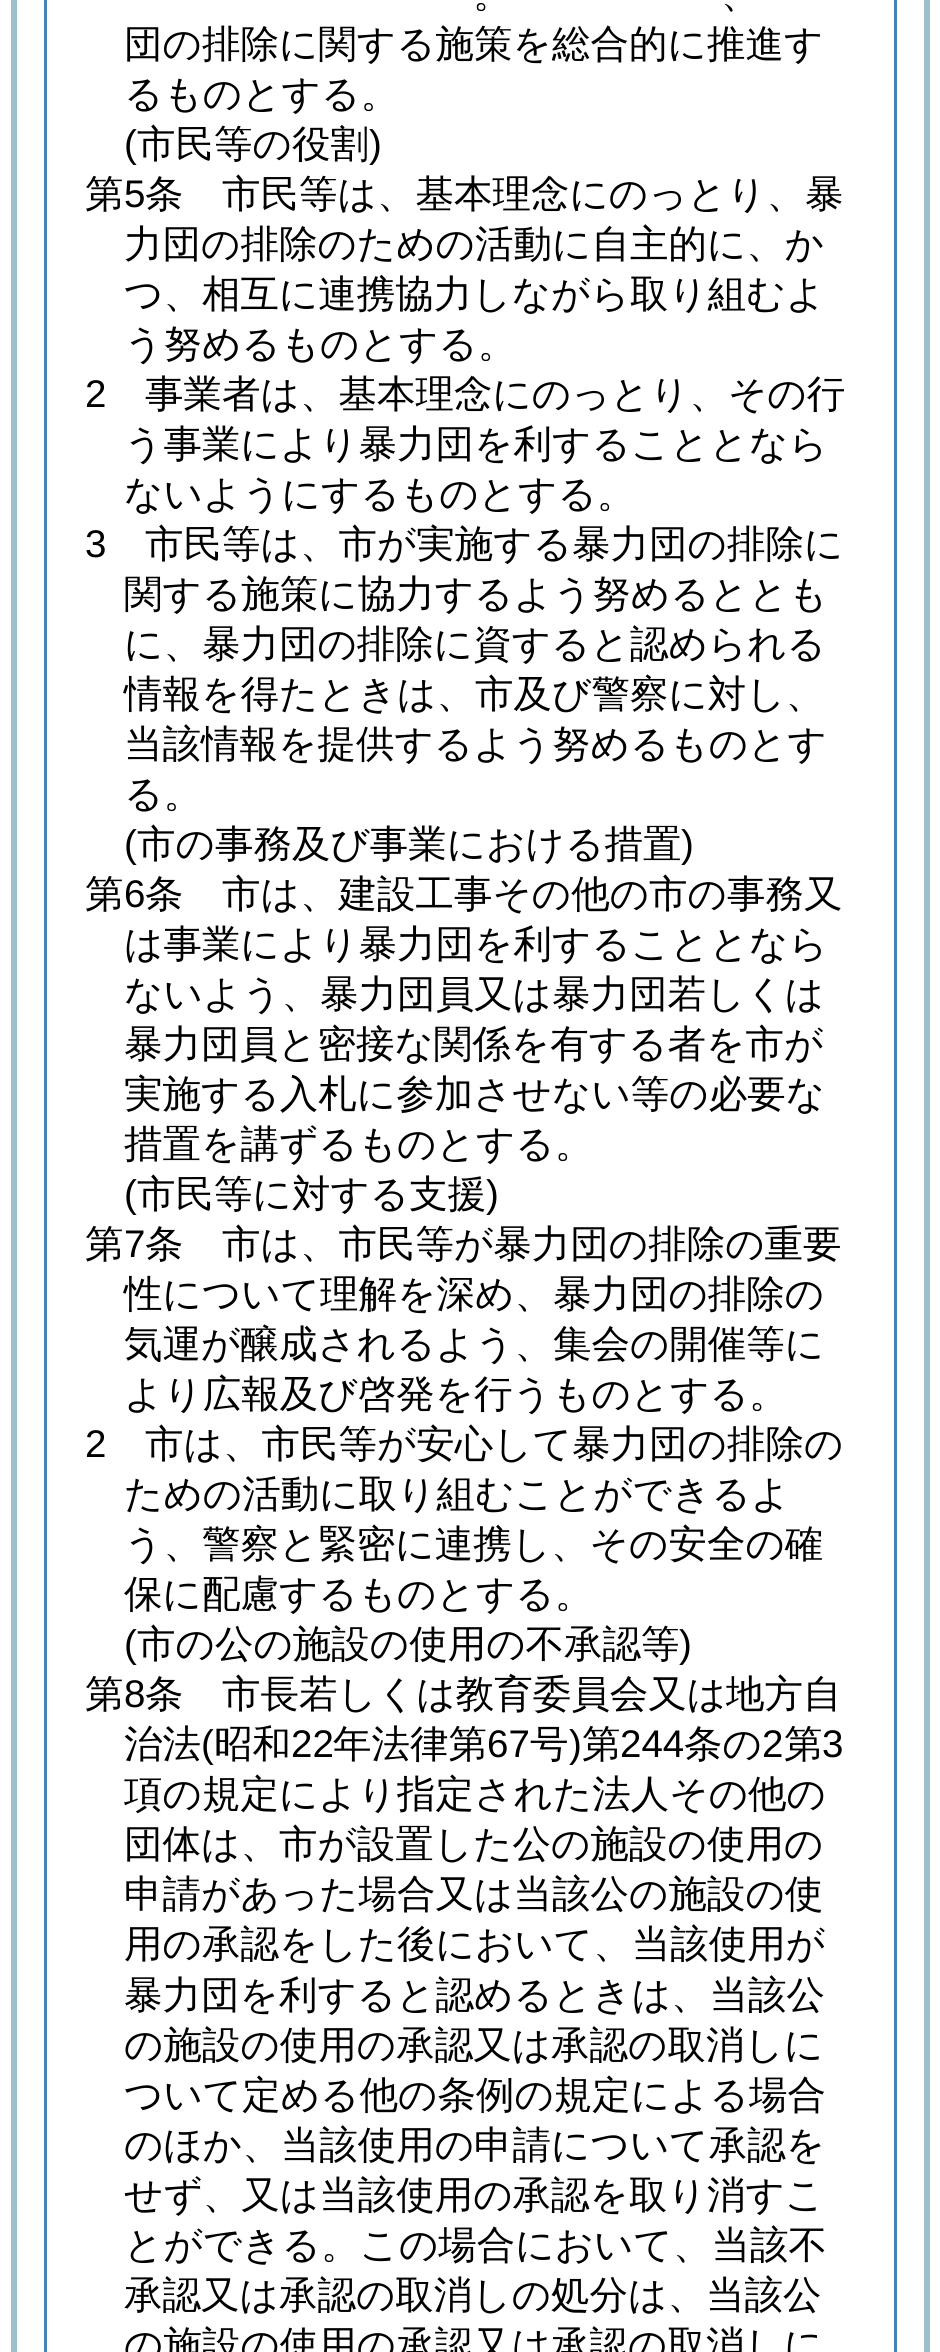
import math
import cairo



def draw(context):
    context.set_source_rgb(1, 1, 1)
    context.paint()
    context.rectangle(14, -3, 913, 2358)
    context.set_source_rgb(160 / 255, 191 / 255, 204 / 255)
    context.set_line_width(6)
    context.stroke()
    context.rectangle(45.5, -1.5, 850, 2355)
    context.set_source_rgb(70 / 255, 130 / 255, 180 / 255)
    context.set_line_width(3)
    context.stroke()
    context.select_font_face("WenQuanYi Zen Hei Medium")
    context.set_font_size(38.5)
    context.set_source_rgb(0, 0, 0)
    context.move_to(473, 7)
    context.show_text("。")
    context.move_to(721, 7)
    context.show_text("、")
    context.move_to(124, 57)
    context.show_text("団の排除に関する施策を総合的に推進す")
    context.move_to(124, 107)
    context.show_text("るものとする。")
    context.select_font_face("Liberation Sans")
    context.move_to(124, 157)
    context.show_text("(")
    context.select_font_face("WenQuanYi Zen Hei Medium")
    context.move_to(137, 157)
    context.show_text("市民等の役割")
    context.select_font_face("Liberation Sans")
    context.move_to(369, 157)
    context.show_text(")")
    context.select_font_face("WenQuanYi Zen Hei Medium")
    context.move_to(85, 207)
    context.show_text("第")
    context.select_font_face("Liberation Sans")
    context.move_to(124, 207)
    context.show_text("5")
    context.select_font_face("WenQuanYi Zen Hei Medium")
    context.move_to(145, 207)
    context.show_text("条")
    context.move_to(222, 207)
    context.show_text("市民等は、基本理念にのっとり、暴")
    context.move_to(124, 257)
    context.show_text("力団の排除のための活動に自主的に、か")
    context.move_to(124, 307)
    context.show_text("つ、相互に連携協力しながら取り組むよ")
    context.move_to(124, 357)
    context.show_text("う努めるものとする。")
    context.select_font_face("Liberation Sans")
    context.move_to(85, 407)
    context.show_text("2")
    context.select_font_face("WenQuanYi Zen Hei Medium")
    context.move_to(145, 407)
    context.show_text("事業者は、基本理念にのっとり、その行")
    context.move_to(124, 457)
    context.show_text("う事業により暴力団を利することとなら")
    context.move_to(124, 507)
    context.show_text("ないようにするものとする。")
    context.select_font_face("Liberation Sans")
    context.move_to(85, 557)
    context.show_text("3")
    context.select_font_face("WenQuanYi Zen Hei Medium")
    context.move_to(145, 557)
    context.show_text("市民等は、市が実施する暴力団の排除に")
    context.move_to(124, 607)
    context.show_text("関する施策に協力するよう努めるととも")
    context.move_to(124, 657)
    context.show_text("に、暴力団の排除に資すると認められる")
    context.move_to(124, 707)
    context.show_text("情報を得たときは、市及び警察に対し、")
    context.move_to(124, 757)
    context.show_text("当該情報を提供するよう努めるものとす")
    context.move_to(124, 807)
    context.show_text("る。")
    context.select_font_face("Liberation Sans")
    context.move_to(124, 857)
    context.show_text("(")
    context.select_font_face("WenQuanYi Zen Hei Medium")
    context.move_to(137, 857)
    context.show_text("市の事務及び事業における措置")
    context.select_font_face("Liberation Sans")
    context.move_to(681, 857)
    context.show_text(")")
    context.select_font_face("WenQuanYi Zen Hei Medium")
    context.move_to(85, 907)
    context.show_text("第")
    context.select_font_face("Liberation Sans")
    context.move_to(124, 907)
    context.show_text("6")
    context.select_font_face("WenQuanYi Zen Hei Medium")
    context.move_to(145, 907)
    context.show_text("条")
    context.move_to(222, 907)
    context.show_text("市は、建設工事その他の市の事務又")
    context.move_to(124, 957)
    context.show_text("は事業により暴力団を利することとなら")
    context.move_to(124, 1007)
    context.show_text("ないよう、暴力団員又は暴力団若しくは")
    context.move_to(124, 1057)
    context.show_text("暴力団員と密接な関係を有する者を市が")
    context.move_to(124, 1107)
    context.show_text("実施する入札に参加させない等の必要な")
    context.move_to(124, 1157)
    context.show_text("措置を講ずるものとする。")
    context.select_font_face("Liberation Sans")
    context.move_to(124, 1207)
    context.show_text("(")
    context.select_font_face("WenQuanYi Zen Hei Medium")
    context.move_to(137, 1207)
    context.show_text("市民等に対する支援")
    context.select_font_face("Liberation Sans")
    context.move_to(486, 1207)
    context.show_text(")")
    context.select_font_face("WenQuanYi Zen Hei Medium")
    context.move_to(85, 1257)
    context.show_text("第")
    context.select_font_face("Liberation Sans")
    context.move_to(124, 1257)
    context.show_text("7")
    context.select_font_face("WenQuanYi Zen Hei Medium")
    context.move_to(145, 1257)
    context.show_text("条")
    context.move_to(222, 1257)
    context.show_text("市は、市民等が暴力団の排除の重要")
    context.move_to(124, 1307)
    context.show_text("性について理解を深め、暴力団の排除の")
    context.move_to(124, 1357)
    context.show_text("気運が醸成されるよう、集会の開催等に")
    context.move_to(124, 1407)
    context.show_text("より広報及び啓発を行うものとする。")
    context.select_font_face("Liberation Sans")
    context.move_to(85, 1457)
    context.show_text("2")
    context.select_font_face("WenQuanYi Zen Hei Medium")
    context.move_to(145, 1457)
    context.show_text("市は、市民等が安心して暴力団の排除の")
    context.move_to(124, 1507)
    context.show_text("ための活動に取り組むことができるよ")
    context.move_to(124, 1557)
    context.show_text("う、警察と緊密に連携し、その安全の確")
    context.move_to(124, 1607)
    context.show_text("保に配慮するものとする。")
    context.select_font_face("Liberation Sans")
    context.move_to(124, 1657)
    context.show_text("(")
    context.select_font_face("WenQuanYi Zen Hei Medium")
    context.move_to(137, 1657)
    context.show_text("市の公の施設の使用の不承認等")
    context.select_font_face("Liberation Sans")
    context.move_to(679, 1657)
    context.show_text(")")
    context.select_font_face("WenQuanYi Zen Hei Medium")
    context.move_to(85, 1707)
    context.show_text("第")
    context.select_font_face("Liberation Sans")
    context.move_to(124, 1707)
    context.show_text("8")
    context.select_font_face("WenQuanYi Zen Hei Medium")
    context.move_to(145, 1707)
    context.show_text("条")
    context.move_to(222, 1707)
    context.show_text("市長若しくは教育委員会又は地方自")
    context.move_to(124, 1757)
    context.show_text("治法")
    context.select_font_face("Liberation Sans")
    context.move_to(201, 1757)
    context.show_text("(")
    context.select_font_face("WenQuanYi Zen Hei Medium")
    context.move_to(214, 1757)
    context.show_text("昭和")
    context.select_font_face("Liberation Sans")
    context.move_to(291, 1757)
    context.show_text("22")
    context.select_font_face("WenQuanYi Zen Hei Medium")
    context.move_to(333, 1757)
    context.show_text("年法律第")
    context.select_font_face("Liberation Sans")
    context.move_to(487, 1757)
    context.show_text("67")
    context.select_font_face("WenQuanYi Zen Hei Medium")
    context.move_to(530, 1757)
    context.show_text("号")
    context.select_font_face("Liberation Sans")
    context.move_to(569, 1757)
    context.show_text(")")
    context.select_font_face("WenQuanYi Zen Hei Medium")
    context.move_to(582, 1757)
    context.show_text("第")
    context.select_font_face("Liberation Sans")
    context.move_to(620, 1757)
    context.show_text("244")
    context.select_font_face("WenQuanYi Zen Hei Medium")
    context.move_to(684, 1757)
    context.show_text("条の")
    context.select_font_face("Liberation Sans")
    context.move_to(762, 1757)
    context.show_text("2")
    context.select_font_face("WenQuanYi Zen Hei Medium")
    context.move_to(784, 1757)
    context.show_text("第")
    context.select_font_face("Liberation Sans")
    context.move_to(822, 1757)
    context.show_text("3")
    context.select_font_face("WenQuanYi Zen Hei Medium")
    context.move_to(124, 1807)
    context.show_text("項の規定により指定された法人その他の")
    context.move_to(124, 1857)
    context.show_text("団体は、市が設置した公の施設の使用の")
    context.move_to(124, 1907)
    context.show_text("申請があった場合又は当該公の施設の使")
    context.move_to(124, 1957)
    context.show_text("用の承認をした後において、当該使用が")
    context.move_to(124, 2008)
    context.show_text("暴力団を利すると認めるときは、当該公")
    context.move_to(124, 2058)
    context.show_text("の施設の使用の承認又は承認の取消しに")
    context.move_to(124, 2108)
    context.show_text("ついて定める他の条例の規定による場合")
    context.move_to(124, 2158)
    context.show_text("のほか、当該使用の申請について承認を")
    context.move_to(124, 2208)
    context.show_text("せず、又は当該使用の承認を取り消すこ")
    context.move_to(124, 2258)
    context.show_text("とができる。この場合において、当該不")
    context.move_to(124, 2308)
    context.show_text("承認又は承認の取消しの処分は、当該公")
    context.move_to(124, 2358)
    context.show_text("の施設の使用の承認又は承認の取消しに")


surface = cairo.ImageSurface(cairo.Format.RGB24, 940, 2352)
context = cairo.Context(surface)
options = cairo.FontOptions()
options.set_hint_metrics(cairo.HintMetrics.OFF)
options.set_hint_style(cairo.HintStyle.NONE)
context.set_font_options(options)
context.set_miter_limit(4)
draw(context)
surface.write_to_png("out.png")
